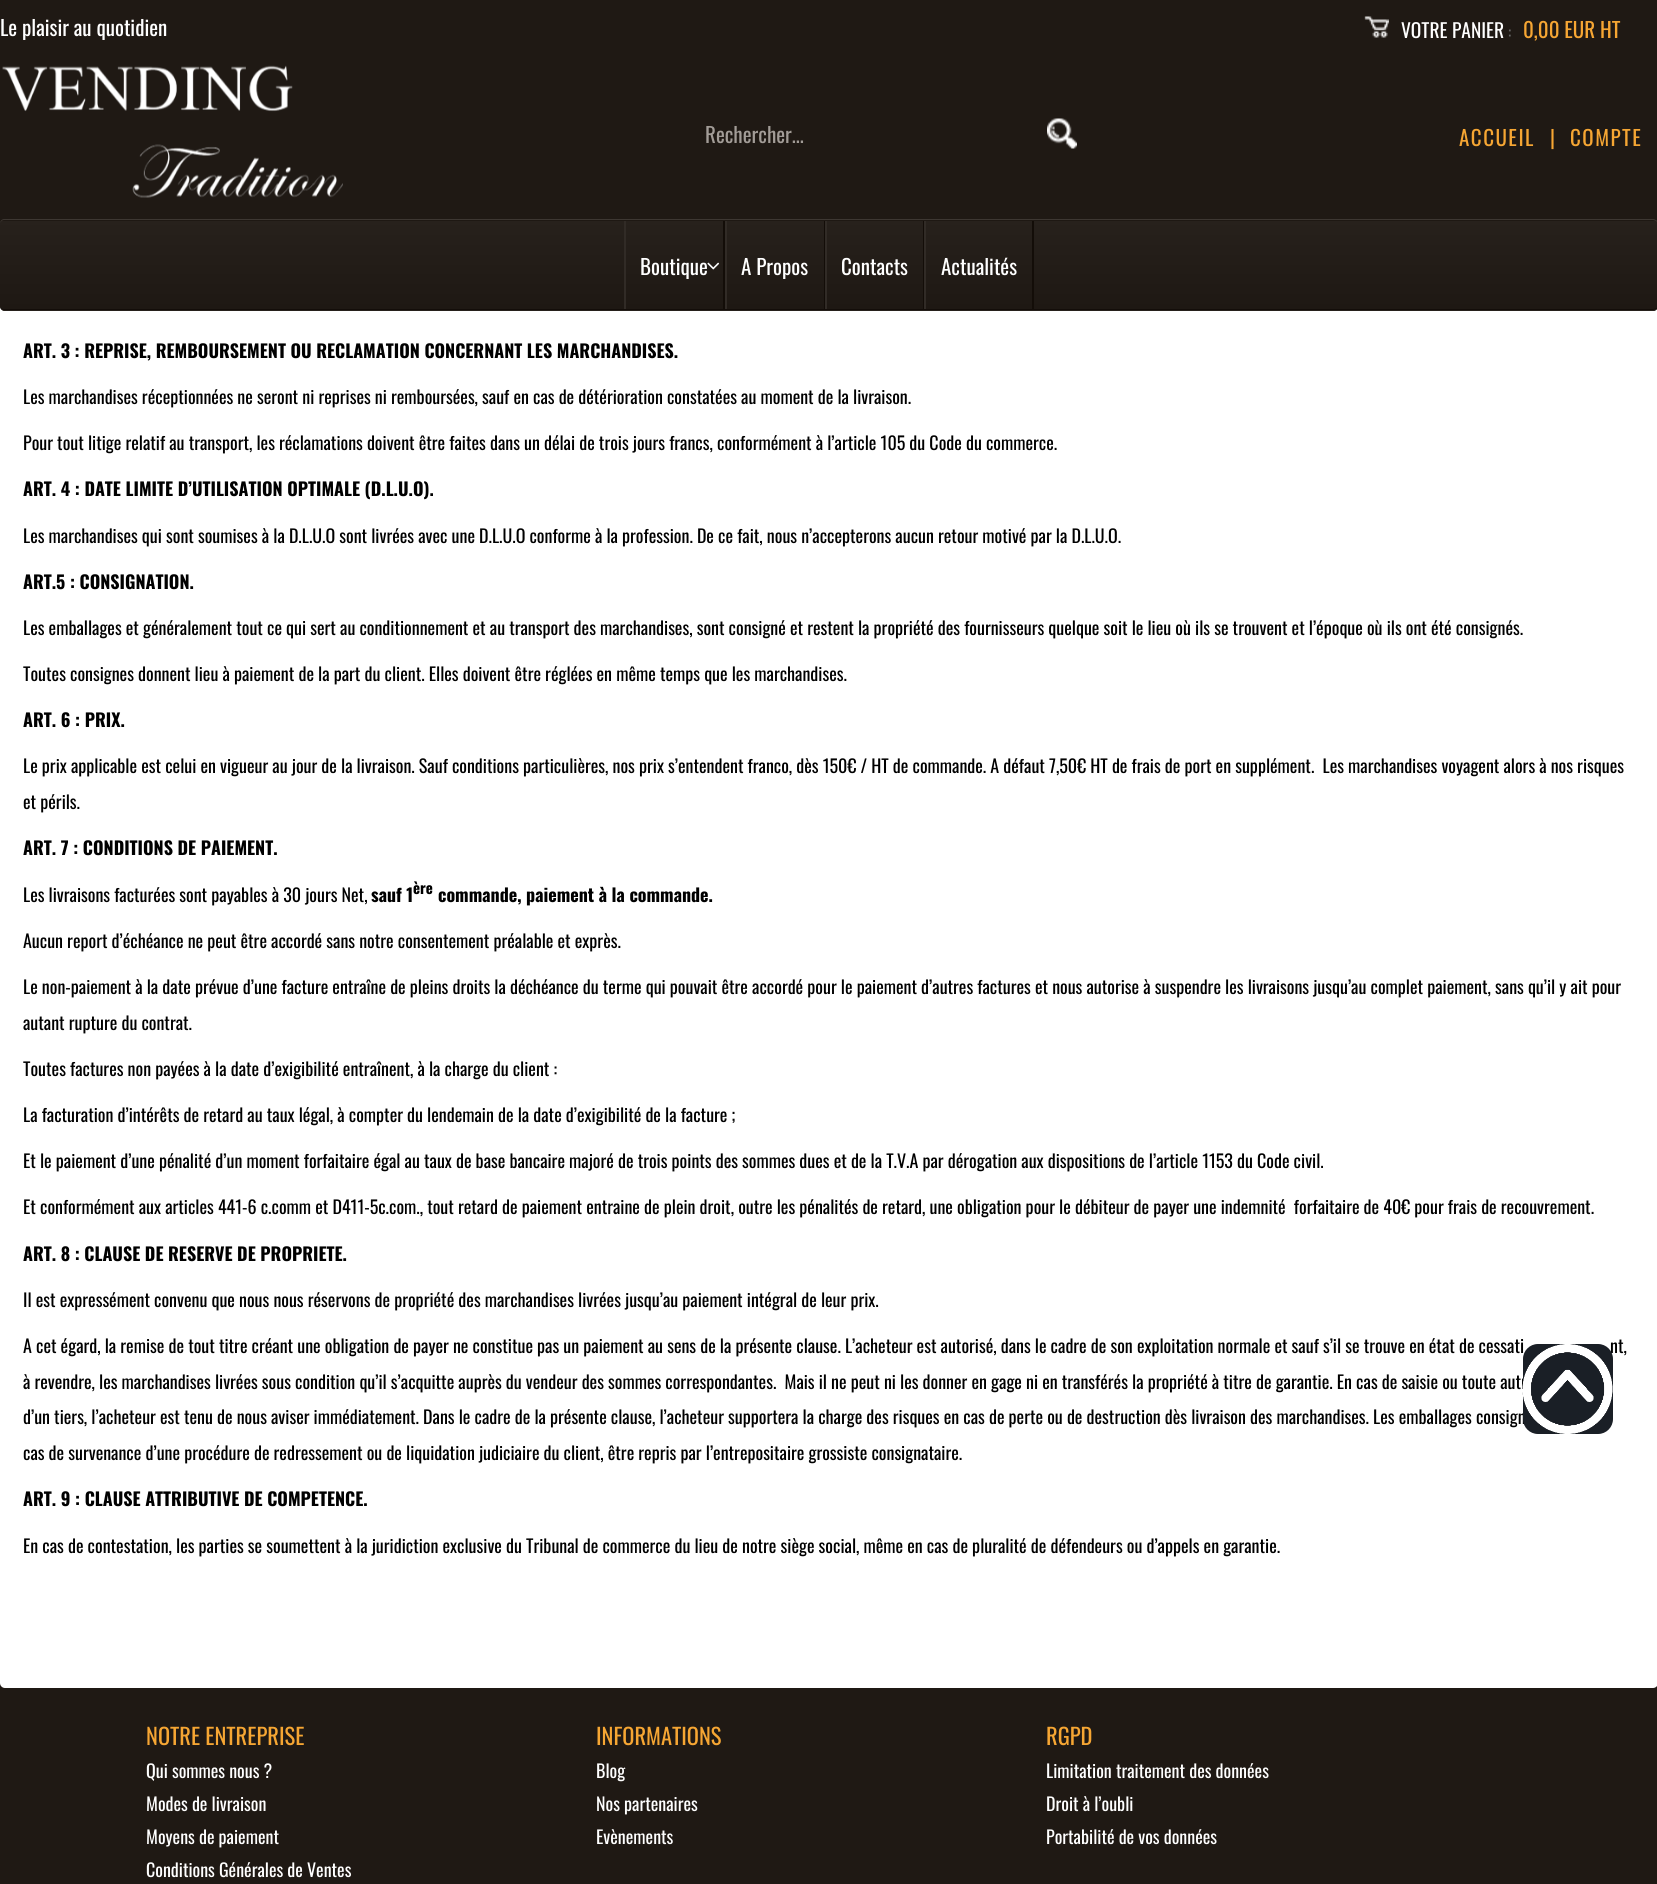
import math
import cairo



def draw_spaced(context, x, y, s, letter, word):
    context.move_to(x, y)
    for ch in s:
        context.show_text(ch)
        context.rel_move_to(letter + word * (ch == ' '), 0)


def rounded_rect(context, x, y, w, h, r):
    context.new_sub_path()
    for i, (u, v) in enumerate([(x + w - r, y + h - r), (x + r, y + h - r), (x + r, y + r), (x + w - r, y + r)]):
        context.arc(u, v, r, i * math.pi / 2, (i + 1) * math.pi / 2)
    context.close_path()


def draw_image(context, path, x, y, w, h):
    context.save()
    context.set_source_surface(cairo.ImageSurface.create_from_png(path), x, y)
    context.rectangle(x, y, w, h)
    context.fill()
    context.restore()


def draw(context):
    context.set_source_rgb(31 / 255, 25 / 255, 20 / 255)
    context.paint()
    context.set_source_rgb(1, 1, 1)
    rounded_rect(context, 0, -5, 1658, 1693, 5)
    context.fill()
    context.set_source_rgb(31 / 255, 25 / 255, 20 / 255)
    context.rectangle(0, 0, 1657, 224)
    context.fill()
    draw_image(context, "images/1.png", 1364, 16, 25, 22)
    draw_image(context, "images/2.png", 2, 65, 341, 133)
    draw_image(context, "images/3.png", 1047, 118, 30, 31)
    context.set_source_rgb(30 / 255, 24 / 255, 19 / 255)
    rounded_rect(context, 0, 219, 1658, 92, 5)
    context.fill()
    context.save()
    rounded_rect(context, 0, 219, 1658, 92, 5)
    context.clip()
    gradient = cairo.LinearGradient(829, 220, 829, 309)
    gradient.add_color_stop_rgba(0, 39 / 255, 33 / 255, 28 / 255, 1)
    gradient.add_color_stop_rgba(1, 30 / 255, 24 / 255, 19 / 255, 1)
    context.set_source(gradient)
    context.rectangle(0, 221, 1657, 88)
    context.fill()
    gradient = cairo.LinearGradient(829, 309, 829, 398)
    gradient.add_color_stop_rgba(0, 39 / 255, 33 / 255, 28 / 255, 1)
    gradient.add_color_stop_rgba(1, 30 / 255, 24 / 255, 19 / 255, 1)
    context.set_source(gradient)
    context.rectangle(0, 309, 1657, 2)
    context.fill()
    context.restore()
    context.set_source_rgb(61 / 255, 55 / 255, 50 / 255)
    context.new_path()
    context.move_to(4, 219)
    context.curve_to(2, 219, 0, 221, 0, 224)
    context.curve_to(0, 222, 2, 220, 4, 220)
    context.line_to(1653, 220)
    context.curve_to(1654, 220, 1657, 221, 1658, 223)
    context.curve_to(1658, 221, 1655, 219, 1653, 219)
    context.close_path()
    context.fill()
    context.set_source_rgb(19 / 255, 13 / 255, 9 / 255)
    context.new_path()
    context.move_to(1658, 307)
    context.curve_to(1657, 309, 1654, 310, 1653, 310)
    context.line_to(4, 310)
    context.curve_to(2, 310, 0, 308, 0, 306)
    context.curve_to(0, 308, 2, 309, 4, 309)
    context.line_to(1653, 309)
    context.curve_to(1654, 309, 1657, 308, 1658, 307)
    context.close_path()
    context.fill()
    context.set_source_rgb(19 / 255, 13 / 255, 8 / 255)
    context.rectangle(723, 221, 2, 88)
    context.fill()
    context.set_source_rgb(49 / 255, 43 / 255, 38 / 255)
    context.rectangle(624, 221, 2, 88)
    context.fill()
    context.set_source_rgb(19 / 255, 13 / 255, 8 / 255)
    context.rectangle(824, 221, 1, 88)
    context.fill()
    context.set_source_rgb(49 / 255, 43 / 255, 38 / 255)
    context.rectangle(725, 221, 2, 88)
    context.fill()
    context.set_source_rgb(19 / 255, 13 / 255, 8 / 255)
    context.rectangle(923, 221, 1, 88)
    context.fill()
    context.set_source_rgb(49 / 255, 43 / 255, 38 / 255)
    context.rectangle(825, 221, 2, 88)
    context.fill()
    context.set_source_rgb(19 / 255, 13 / 255, 8 / 255)
    context.rectangle(1032, 221, 2, 88)
    context.fill()
    context.set_source_rgb(49 / 255, 43 / 255, 38 / 255)
    context.rectangle(924, 221, 2, 88)
    context.fill()
    context.select_font_face("Oswald")
    context.set_font_size(21)
    context.set_source_rgb(1, 1, 1)
    context.move_to(0, 36)
    context.show_text("Le plaisir au quotidien")
    context.set_font_size(19.5)
    context.move_to(1401, 38)
    context.show_text("VOTRE PANIER")
    context.set_font_size(16)
    context.set_source_rgb(102 / 255, 102 / 255, 102 / 255)
    context.move_to(1508, 38)
    context.show_text(":")
    context.set_font_size(21)
    context.set_source_rgb(246 / 255, 166 / 255, 51 / 255)
    context.move_to(1523, 38)
    context.show_text("0,00 EUR HT")
    context.set_source_rgb(162 / 255, 156 / 255, 151 / 255)
    context.move_to(705, 143)
    context.show_text("Rechercher...")
    context.set_source_rgb(246 / 255, 166 / 255, 51 / 255)
    draw_spaced(context, 1459, 146, "ACCUEIL", 1.5, 0)
    context.move_to(1550, 146)
    context.show_text("|")
    draw_spaced(context, 1570, 146, "COMPTE", 1.5, 0)
    context.set_source_rgb(1, 1, 1)
    context.move_to(640, 275)
    context.show_text("Boutique")
    draw_image(context, "images/4.png", 707, 262, 13, 8)
    context.move_to(741, 275)
    context.show_text("A Propos")
    context.move_to(841, 275)
    context.show_text("Contacts")
    context.move_to(941, 275)
    context.show_text("Actualités")
    context.select_font_face("Oswald", cairo.FontSlant.NORMAL, cairo.FontWeight.BOLD)
    context.set_font_size(18)
    context.set_source_rgb(0, 0, 0)
    context.move_to(23, 358)
    context.show_text("ART. 3 : REPRISE, REMBOURSEMENT OU RECLAMATION CONCERNANT LES MARCHANDISES.")
    context.select_font_face("Oswald")
    context.move_to(23, 404)
    context.show_text("Les marchandises réceptionnées ne seront ni reprises ni remboursées, sauf en cas de détérioration constatées au moment de la livraison.")
    context.move_to(23, 450)
    context.show_text("Pour tout litige relatif au transport, les réclamations doivent être faites dans un délai de trois jours francs, conformément à l’article 105 du Code du commerce.")
    context.select_font_face("Oswald", cairo.FontSlant.NORMAL, cairo.FontWeight.BOLD)
    context.move_to(23, 496)
    context.show_text("ART. 4 : DATE LIMITE D’UTILISATION OPTIMALE (D.L.U.O).")
    context.select_font_face("Oswald")
    context.move_to(23, 543)
    context.show_text("Les marchandises qui sont soumises à la D.L.U.O sont livrées avec une D.L.U.O conforme à la profession. De ce fait, nous n’accepterons aucun retour motivé par la D.L.U.O.")
    context.select_font_face("Oswald", cairo.FontSlant.NORMAL, cairo.FontWeight.BOLD)
    context.move_to(23, 589)
    context.show_text("ART.5 : CONSIGNATION.")
    context.select_font_face("Oswald")
    context.move_to(23, 635)
    context.show_text("Les emballages et généralement tout ce qui sert au conditionnement et au transport des marchandises, sont consigné et restent la propriété des fournisseurs quelque soit le lieu où ils se trouvent et l’époque où ils ont été consignés.")
    context.move_to(23, 681)
    context.show_text("Toutes consignes donnent lieu à paiement de la part du client. Elles doivent être réglées en même temps que les marchandises.")
    context.select_font_face("Oswald", cairo.FontSlant.NORMAL, cairo.FontWeight.BOLD)
    context.move_to(23, 727)
    context.show_text("ART. 6 : PRIX.")
    context.select_font_face("Oswald")
    context.move_to(23, 773)
    context.show_text("Le prix applicable est celui en vigueur au jour de la livraison. Sauf conditions particulières, nos prix s’entendent franco, dès 150€ / HT de commande. A défaut 7,50€ HT de frais de port en supplément.  Les marchandises voyagent alors à nos risques")
    context.move_to(23, 809)
    context.show_text("et périls.")
    context.select_font_face("Oswald", cairo.FontSlant.NORMAL, cairo.FontWeight.BOLD)
    context.move_to(23, 855)
    context.show_text("ART. 7 : CONDITIONS DE PAIEMENT.")
    context.select_font_face("Oswald")
    context.move_to(23, 902)
    context.show_text("Les livraisons facturées sont payables à 30 jours Net,")
    context.select_font_face("Oswald", cairo.FontSlant.NORMAL, cairo.FontWeight.BOLD)
    context.move_to(371, 902)
    context.show_text("sauf 1")
    context.set_font_size(15)
    context.move_to(413, 894)
    context.show_text("ère")
    context.set_font_size(18)
    context.move_to(438, 902)
    context.show_text("commande, paiement à la commande.")
    context.select_font_face("Oswald")
    context.move_to(23, 948)
    context.show_text("Aucun report d’échéance ne peut être accordé sans notre consentement préalable et exprès.")
    context.move_to(23, 994)
    context.show_text("Le non-paiement à la date prévue d’une facture entraîne de pleins droits la déchéance du terme qui pouvait être accordé pour le paiement d’autres factures et nous autorise à suspendre les livraisons jusqu’au complet paiement, sans qu’il y ait pour")
    context.move_to(23, 1030)
    context.show_text("autant rupture du contrat.")
    context.move_to(23, 1076)
    context.show_text("Toutes factures non payées à la date d’exigibilité entraînent, à la charge du client :")
    context.move_to(23, 1122)
    context.show_text("La facturation d’intérêts de retard au taux légal, à compter du lendemain de la date d’exigibilité de la facture ;")
    context.move_to(23, 1168)
    context.show_text("Et le paiement d’une pénalité d’un moment forfaitaire égal au taux de base bancaire majoré de trois points des sommes dues et de la T.V.A par dérogation aux dispositions de l’article 1153 du Code civil.")
    context.move_to(23, 1214)
    context.show_text("Et conformément aux articles 441-6 c.comm et D411-5c.com., tout retard de paiement entraine de plein droit, outre les pénalités de retard, une obligation pour le débiteur de payer une indemnité  forfaitaire de 40€ pour frais de recouvrement.")
    context.select_font_face("Oswald", cairo.FontSlant.NORMAL, cairo.FontWeight.BOLD)
    context.move_to(23, 1261)
    context.show_text("ART. 8 : CLAUSE DE RESERVE DE PROPRIETE.")
    context.select_font_face("Oswald")
    context.move_to(23, 1307)
    context.show_text("Il est expressément convenu que nous nous réservons de propriété des marchandises livrées jusqu’au paiement intégral de leur prix.")
    context.move_to(23, 1353)
    context.show_text("A cet égard, la remise de tout titre créant une obligation de payer ne constitue pas un paiement au sens de la présente clause. L’acheteur est autorisé, dans le cadre de son exploitation normale et sauf s’il se trouve en état de cessati")
    context.move_to(1610, 1353)
    context.show_text("nt,")
    context.move_to(23, 1389)
    context.show_text("à revendre, les marchandises livrées sous condition qu’il s’acquitte auprès du vendeur des sommes correspondantes.  Mais il ne peut ni les donner en gage ni en transférés la propriété à titre de garantie. En cas de saisie ou toute autr")
    context.move_to(23, 1424)
    context.show_text("d’un tiers, l’acheteur est tenu de nous aviser immédiatement. Dans le cadre de la présente clause, l’acheteur supportera la charge des risques en cas de perte ou de destruction dès livraison des marchandises. Les emballages consign")
    context.move_to(23, 1460)
    context.show_text("cas de survenance d’une procédure de redressement ou de liquidation judiciaire du client, être repris par l’entrepositaire grossiste consignataire.")
    context.select_font_face("Oswald", cairo.FontSlant.NORMAL, cairo.FontWeight.BOLD)
    context.move_to(23, 1506)
    context.show_text("ART. 9 : CLAUSE ATTRIBUTIVE DE COMPETENCE.")
    context.select_font_face("Oswald")
    context.move_to(23, 1553)
    context.show_text("En cas de contestation, les parties se soumettent à la juridiction exclusive du Tribunal de commerce du lieu de notre siège social, même en cas de pluralité de défendeurs ou d’appels en garantie.")
    context.set_source_rgb(26 / 255, 31 / 255, 38 / 255)
    rounded_rect(context, 1523, 1344, 90, 90, 15)
    context.fill()
    draw_image(context, "images/5.png", 1522, 1344, 91, 90)
    context.set_font_size(22.5)
    context.set_source_rgb(246 / 255, 166 / 255, 51 / 255)
    context.move_to(146, 1745)
    context.show_text("NOTRE ENTREPRISE")
    context.set_font_size(18)
    context.set_source_rgb(1, 1, 1)
    context.move_to(146, 1778)
    context.show_text("Qui sommes nous ?")
    context.move_to(146, 1811)
    context.show_text("Modes de livraison")
    context.move_to(146, 1844)
    context.show_text("Moyens de paiement")
    context.move_to(146, 1877)
    context.show_text("Conditions Générales de Ventes")
    context.set_font_size(22.5)
    context.set_source_rgb(246 / 255, 166 / 255, 51 / 255)
    context.move_to(596, 1745)
    context.show_text("INFORMATIONS")
    context.set_font_size(18)
    context.set_source_rgb(1, 1, 1)
    context.move_to(596, 1778)
    context.show_text("Blog")
    context.move_to(596, 1811)
    context.show_text("Nos partenaires")
    context.move_to(596, 1844)
    context.show_text("Evènements")
    context.set_font_size(22.5)
    context.set_source_rgb(246 / 255, 166 / 255, 51 / 255)
    context.move_to(1046, 1745)
    context.show_text("RGPD")
    context.set_font_size(18)
    context.set_source_rgb(1, 1, 1)
    context.move_to(1046, 1778)
    context.show_text("Limitation traitement des données")
    context.move_to(1046, 1811)
    context.show_text("Droit à l’oubli")
    context.move_to(1046, 1844)
    context.show_text("Portabilité de vos données")


surface = cairo.ImageSurface(cairo.Format.RGB24, 1657, 1884)
context = cairo.Context(surface)
options = cairo.FontOptions()
options.set_hint_metrics(cairo.HintMetrics.OFF)
options.set_hint_style(cairo.HintStyle.NONE)
context.set_font_options(options)
context.set_miter_limit(4)
draw(context)
surface.write_to_png("out.png")
